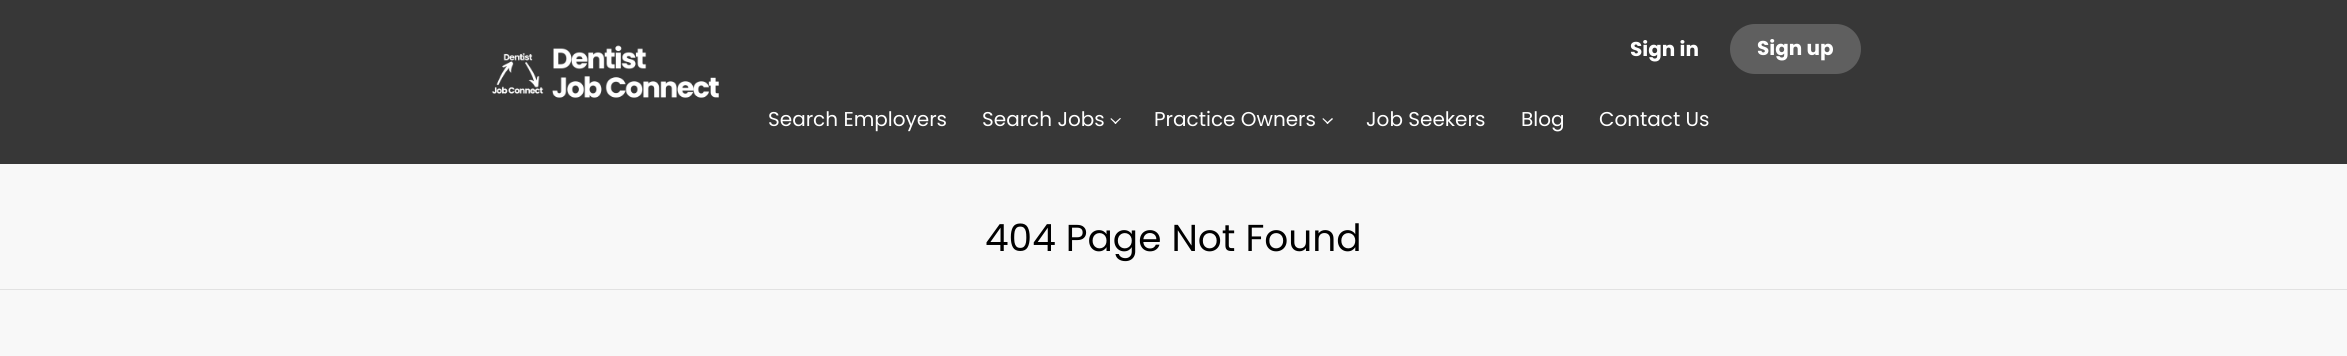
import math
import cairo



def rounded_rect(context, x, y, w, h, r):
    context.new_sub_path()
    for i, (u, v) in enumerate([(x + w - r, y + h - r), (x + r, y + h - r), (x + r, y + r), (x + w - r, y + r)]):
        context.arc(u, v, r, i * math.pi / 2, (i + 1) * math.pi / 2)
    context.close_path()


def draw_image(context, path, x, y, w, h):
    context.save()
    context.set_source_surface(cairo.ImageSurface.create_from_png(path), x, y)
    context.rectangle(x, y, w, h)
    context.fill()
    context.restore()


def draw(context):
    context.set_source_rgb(248 / 255, 248 / 255, 248 / 255)
    context.paint()
    context.set_source_rgb(55 / 255, 55 / 255, 55 / 255)
    context.rectangle(0, 0, 2347, 164)
    context.fill()
    draw_image(context, "images/1.png", 491, 45, 228, 53)
    context.set_source_rgb(95 / 255, 95 / 255, 95 / 255)
    rounded_rect(context, 1730, 24, 131, 50, 25)
    context.fill()
    context.set_source_rgb(1, 1, 1)
    context.new_path()
    context.move_to(1121, 118.5)
    context.line_to(1115.5, 124)
    context.line_to(1114.5, 123)
    context.line_to(1120, 118)
    context.close_path()
    context.fill()
    context.new_path()
    context.move_to(1116.5, 123)
    context.line_to(1115.5, 124)
    context.line_to(1110.5, 119)
    context.line_to(1111, 118)
    context.close_path()
    context.fill()
    context.new_path()
    context.move_to(1333, 119)
    context.line_to(1327.5, 124)
    context.line_to(1326.5, 123)
    context.line_to(1332, 118)
    context.close_path()
    context.fill()
    context.new_path()
    context.move_to(1328.5, 123)
    context.line_to(1327.5, 124)
    context.line_to(1322.5, 119)
    context.line_to(1323, 118)
    context.close_path()
    context.fill()
    context.set_source_rgb(226 / 255, 226 / 255, 226 / 255)
    context.rectangle(0, 289, 2347, 1)
    context.fill()
    context.select_font_face("Poppins", cairo.FontSlant.NORMAL, cairo.FontWeight.BOLD)
    context.set_font_size(20)
    context.set_source_rgb(1, 1, 1)
    context.move_to(1630, 56)
    context.show_text("Sign in")
    context.move_to(1757, 55)
    context.show_text("Sign up")
    context.select_font_face("Poppins")
    context.move_to(768, 126)
    context.show_text("Search Employers")
    context.move_to(982, 126)
    context.show_text("Search Jobs")
    context.move_to(1154, 126)
    context.show_text("Practice Owners")
    context.move_to(1366, 126)
    context.show_text("Job Seekers")
    context.move_to(1521, 126)
    context.show_text("Blog")
    context.move_to(1599, 126)
    context.show_text("Contact Us")
    context.set_font_size(37.5)
    context.set_source_rgb(0, 0, 0)
    context.move_to(985, 251)
    context.show_text("404 Page Not Found")


surface = cairo.ImageSurface(cairo.Format.RGB24, 2347, 356)
context = cairo.Context(surface)
options = cairo.FontOptions()
options.set_hint_metrics(cairo.HintMetrics.OFF)
options.set_hint_style(cairo.HintStyle.NONE)
context.set_font_options(options)
context.set_miter_limit(4)
draw(context)
surface.write_to_png("out.png")
